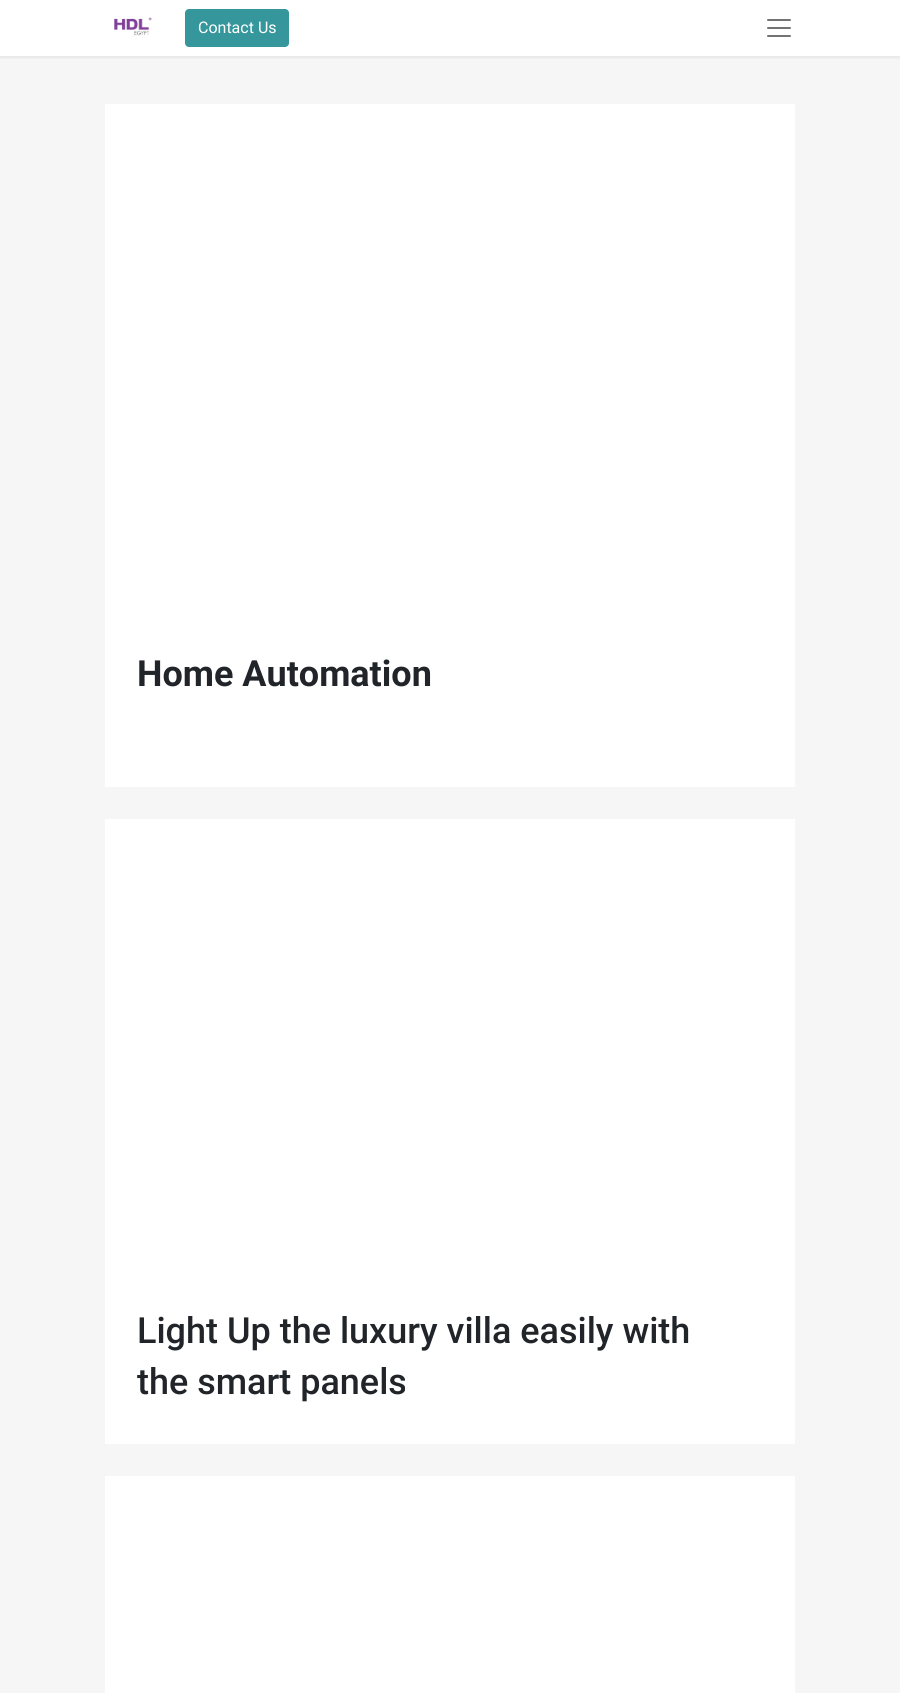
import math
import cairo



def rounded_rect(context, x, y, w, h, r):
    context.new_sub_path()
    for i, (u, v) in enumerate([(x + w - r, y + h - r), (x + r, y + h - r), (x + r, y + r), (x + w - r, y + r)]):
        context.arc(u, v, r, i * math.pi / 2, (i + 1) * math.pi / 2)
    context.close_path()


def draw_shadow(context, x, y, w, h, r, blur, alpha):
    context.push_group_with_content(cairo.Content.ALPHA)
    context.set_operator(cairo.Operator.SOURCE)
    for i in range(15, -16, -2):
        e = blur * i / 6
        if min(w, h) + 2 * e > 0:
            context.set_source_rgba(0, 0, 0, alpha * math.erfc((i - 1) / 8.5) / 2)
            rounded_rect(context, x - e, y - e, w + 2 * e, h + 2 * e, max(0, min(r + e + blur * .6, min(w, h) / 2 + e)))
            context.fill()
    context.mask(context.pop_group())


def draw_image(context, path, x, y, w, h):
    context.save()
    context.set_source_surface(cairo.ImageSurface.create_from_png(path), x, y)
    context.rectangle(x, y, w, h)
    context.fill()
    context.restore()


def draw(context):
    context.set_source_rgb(1, 1, 1)
    context.paint()
    context.set_source_rgb(246 / 255, 246 / 255, 246 / 255)
    context.rectangle(0, 56, 900, 1637)
    context.fill()
    context.save()
    context.rectangle(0, 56, 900, 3)
    context.clip()
    context.set_source_rgb(0, 0, 0)
    draw_shadow(context, 0, 2, 900, 56, 0, 2, 0.07)
    context.restore()
    draw_image(context, "images/1.png", 114, 17, 38, 19)
    context.set_source_rgb(53 / 255, 151 / 255, 156 / 255)
    rounded_rect(context, 185.5, 9.5, 103, 37, 3.5)
    context.fill_preserve()
    context.set_line_width(1)
    context.stroke()
    draw_image(context, "images/2.png", 767, 19, 24, 18)
    context.set_source_rgb(1, 1, 1)
    context.rectangle(105, 104, 690, 683)
    context.fill()
    context.rectangle(105, 819, 690, 625)
    context.fill()
    context.rectangle(105, 1476, 690, 217)
    context.fill()
    context.select_font_face("Roboto")
    context.set_font_size(16)
    context.move_to(198, 33)
    context.show_text("Contact Us")
    context.select_font_face("Roboto", cairo.FontSlant.NORMAL, cairo.FontWeight.BOLD)
    context.set_font_size(36)
    context.set_source_rgb(33 / 255, 37 / 255, 41 / 255)
    context.move_to(137, 686)
    context.show_text("Home Automation")
    context.select_font_face("Roboto Medium")
    context.move_to(137, 1343)
    context.show_text("Light Up the luxury villa easily with")
    context.move_to(137, 1394)
    context.show_text("the smart panels")


surface = cairo.ImageSurface(cairo.Format.RGB24, 900, 1693)
context = cairo.Context(surface)
options = cairo.FontOptions()
options.set_hint_metrics(cairo.HintMetrics.OFF)
options.set_hint_style(cairo.HintStyle.NONE)
context.set_font_options(options)
context.set_miter_limit(4)
draw(context)
surface.write_to_png("out.png")
